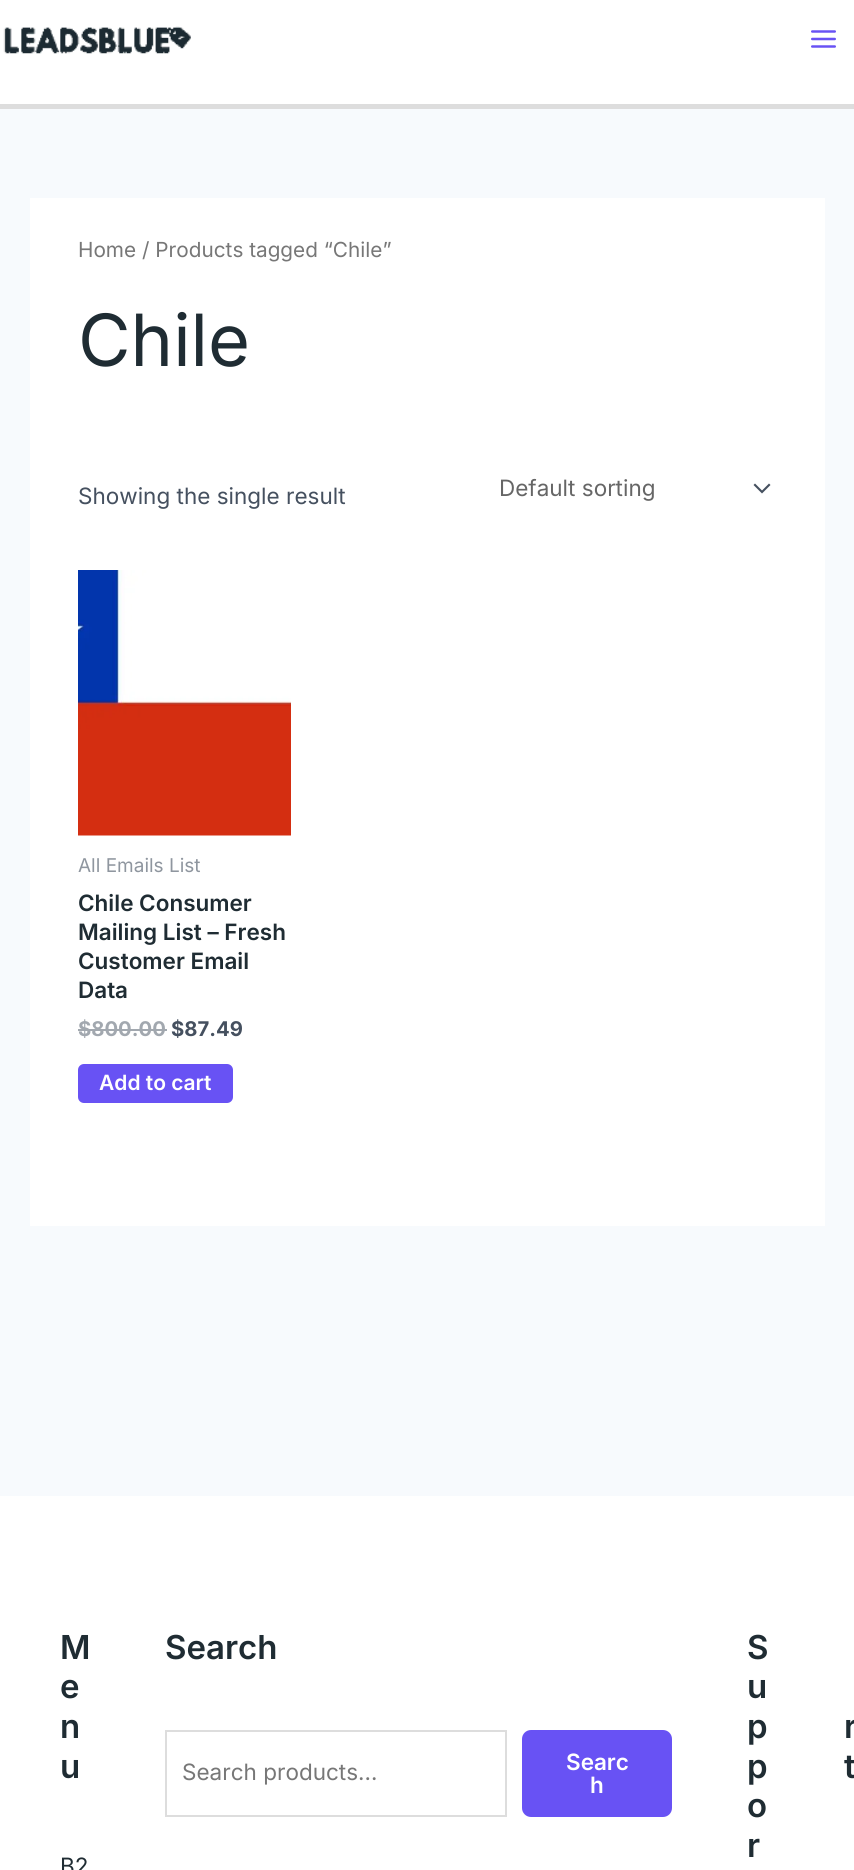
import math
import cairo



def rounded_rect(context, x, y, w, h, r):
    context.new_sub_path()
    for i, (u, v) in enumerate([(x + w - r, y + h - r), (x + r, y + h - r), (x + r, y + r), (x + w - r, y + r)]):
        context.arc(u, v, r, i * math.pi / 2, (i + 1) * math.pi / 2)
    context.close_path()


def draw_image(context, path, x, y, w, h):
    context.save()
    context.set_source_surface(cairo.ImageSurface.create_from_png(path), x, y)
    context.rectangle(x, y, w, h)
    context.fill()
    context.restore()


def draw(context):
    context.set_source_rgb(247 / 255, 250 / 255, 253 / 255)
    context.paint()
    context.set_source_rgb(1, 1, 1)
    context.rectangle(0, 0, 854, 104)
    context.fill()
    context.set_source_rgb(221 / 255, 221 / 255, 221 / 255)
    context.rectangle(0, 104, 854, 5)
    context.fill()
    draw_image(context, "images/1.png", 3, 26, 188, 28)
    draw_image(context, "images/2.png", 811, 30, 25, 18)
    context.set_source_rgb(1, 1, 1)
    context.rectangle(30, 198, 795, 1028)
    context.fill()
    context.set_source_rgb(69 / 255, 80 / 255, 95 / 255)
    context.new_path()
    context.move_to(753.5, 485)
    context.line_to(762, 493.5)
    context.line_to(770.5, 485)
    context.line_to(769, 483.5)
    context.line_to(762, 490.5)
    context.line_to(755, 483.5)
    context.close_path()
    context.fill()
    draw_image(context, "images/3.png", 78, 570, 213, 266)
    context.set_source_rgb(162 / 255, 168 / 255, 175 / 255)
    context.rectangle(78, 1029, 89, 2)
    context.fill()
    context.set_source_rgb(104 / 255, 82 / 255, 244 / 255)
    rounded_rect(context, 78, 1064, 155, 39, 6)
    context.fill()
    context.set_source_rgb(1, 1, 1)
    context.rectangle(0, 1496, 854, 374)
    context.fill()
    context.rectangle(166, 1731, 340, 85)
    context.set_source_rgb(221 / 255, 221 / 255, 221 / 255)
    context.stroke()
    context.set_source_rgb(104 / 255, 82 / 255, 244 / 255)
    rounded_rect(context, 522, 1730, 150, 87, 9)
    context.fill()
    context.select_font_face("Inter")
    context.set_font_size(20.75)
    context.set_source_rgb(119 / 255, 119 / 255, 119 / 255)
    context.move_to(78, 257)
    context.show_text("Home / Products tagged “Chile”")
    context.set_font_size(72)
    context.set_source_rgb(31 / 255, 44 / 255, 51 / 255)
    context.move_to(78, 366)
    context.show_text("Chile")
    context.set_font_size(22.5)
    context.set_source_rgb(69 / 255, 80 / 255, 95 / 255)
    context.move_to(78, 504)
    context.show_text("Showing the single result")
    context.set_source_rgb(102 / 255, 102 / 255, 102 / 255)
    context.move_to(499, 496)
    context.show_text("Default sorting")
    context.set_font_size(19)
    context.set_source_rgb(143 / 255, 150 / 255, 159 / 255)
    context.move_to(78, 872)
    context.show_text("All Emails List")
    context.select_font_face("Inter SemiBold")
    context.set_font_size(22.5)
    context.set_source_rgb(31 / 255, 44 / 255, 51 / 255)
    context.move_to(78, 911)
    context.show_text("Chile Consumer")
    context.move_to(78, 940)
    context.show_text("Mailing List – Fresh")
    context.move_to(78, 969)
    context.show_text("Customer Email")
    context.move_to(78, 998)
    context.show_text("Data")
    context.select_font_face("Inter", cairo.FontSlant.NORMAL, cairo.FontWeight.BOLD)
    context.set_font_size(20.25)
    context.set_source_rgb(162 / 255, 168 / 255, 175 / 255)
    context.move_to(78, 1036)
    context.show_text("$800.00")
    context.set_source_rgb(69 / 255, 80 / 255, 95 / 255)
    context.move_to(171, 1036)
    context.show_text("$87.49")
    context.select_font_face("Inter SemiBold")
    context.set_font_size(21)
    context.set_source_rgb(1, 1, 1)
    context.move_to(99, 1090)
    context.show_text("Add to cart")
    context.set_font_size(33)
    context.set_source_rgb(31 / 255, 44 / 255, 51 / 255)
    context.move_to(60, 1659)
    context.show_text("M")
    context.move_to(60, 1698)
    context.show_text("e")
    context.move_to(60, 1738)
    context.show_text("n")
    context.move_to(60, 1778)
    context.show_text("u")
    context.select_font_face("Inter")
    context.set_font_size(22.5)
    context.move_to(60, 1874)
    context.show_text("B2")
    context.select_font_face("Inter SemiBold")
    context.set_font_size(33)
    context.move_to(165, 1659)
    context.show_text("Search")
    context.select_font_face("Inter")
    context.set_font_size(22.5)
    context.set_source_rgb(119 / 255, 119 / 255, 119 / 255)
    context.move_to(182, 1780)
    context.show_text("Search products…")
    context.select_font_face("Inter SemiBold")
    context.set_source_rgb(1, 1, 1)
    context.move_to(566, 1770)
    context.show_text("Searc")
    context.move_to(590, 1793)
    context.show_text("h")
    context.set_font_size(33)
    context.set_source_rgb(31 / 255, 44 / 255, 51 / 255)
    context.move_to(747, 1659)
    context.show_text("S")
    context.move_to(747, 1698)
    context.show_text("u")
    context.move_to(747, 1738)
    context.show_text("p")
    context.move_to(747, 1778)
    context.show_text("p")
    context.move_to(747, 1817)
    context.show_text("o")
    context.move_to(747, 1857)
    context.show_text("r")
    context.move_to(844, 1738)
    context.show_text("r")
    context.move_to(844, 1778)
    context.show_text("t")


surface = cairo.ImageSurface(cairo.Format.RGB24, 854, 1870)
context = cairo.Context(surface)
options = cairo.FontOptions()
options.set_hint_metrics(cairo.HintMetrics.OFF)
options.set_hint_style(cairo.HintStyle.NONE)
context.set_font_options(options)
context.set_miter_limit(4)
draw(context)
surface.write_to_png("out.png")
